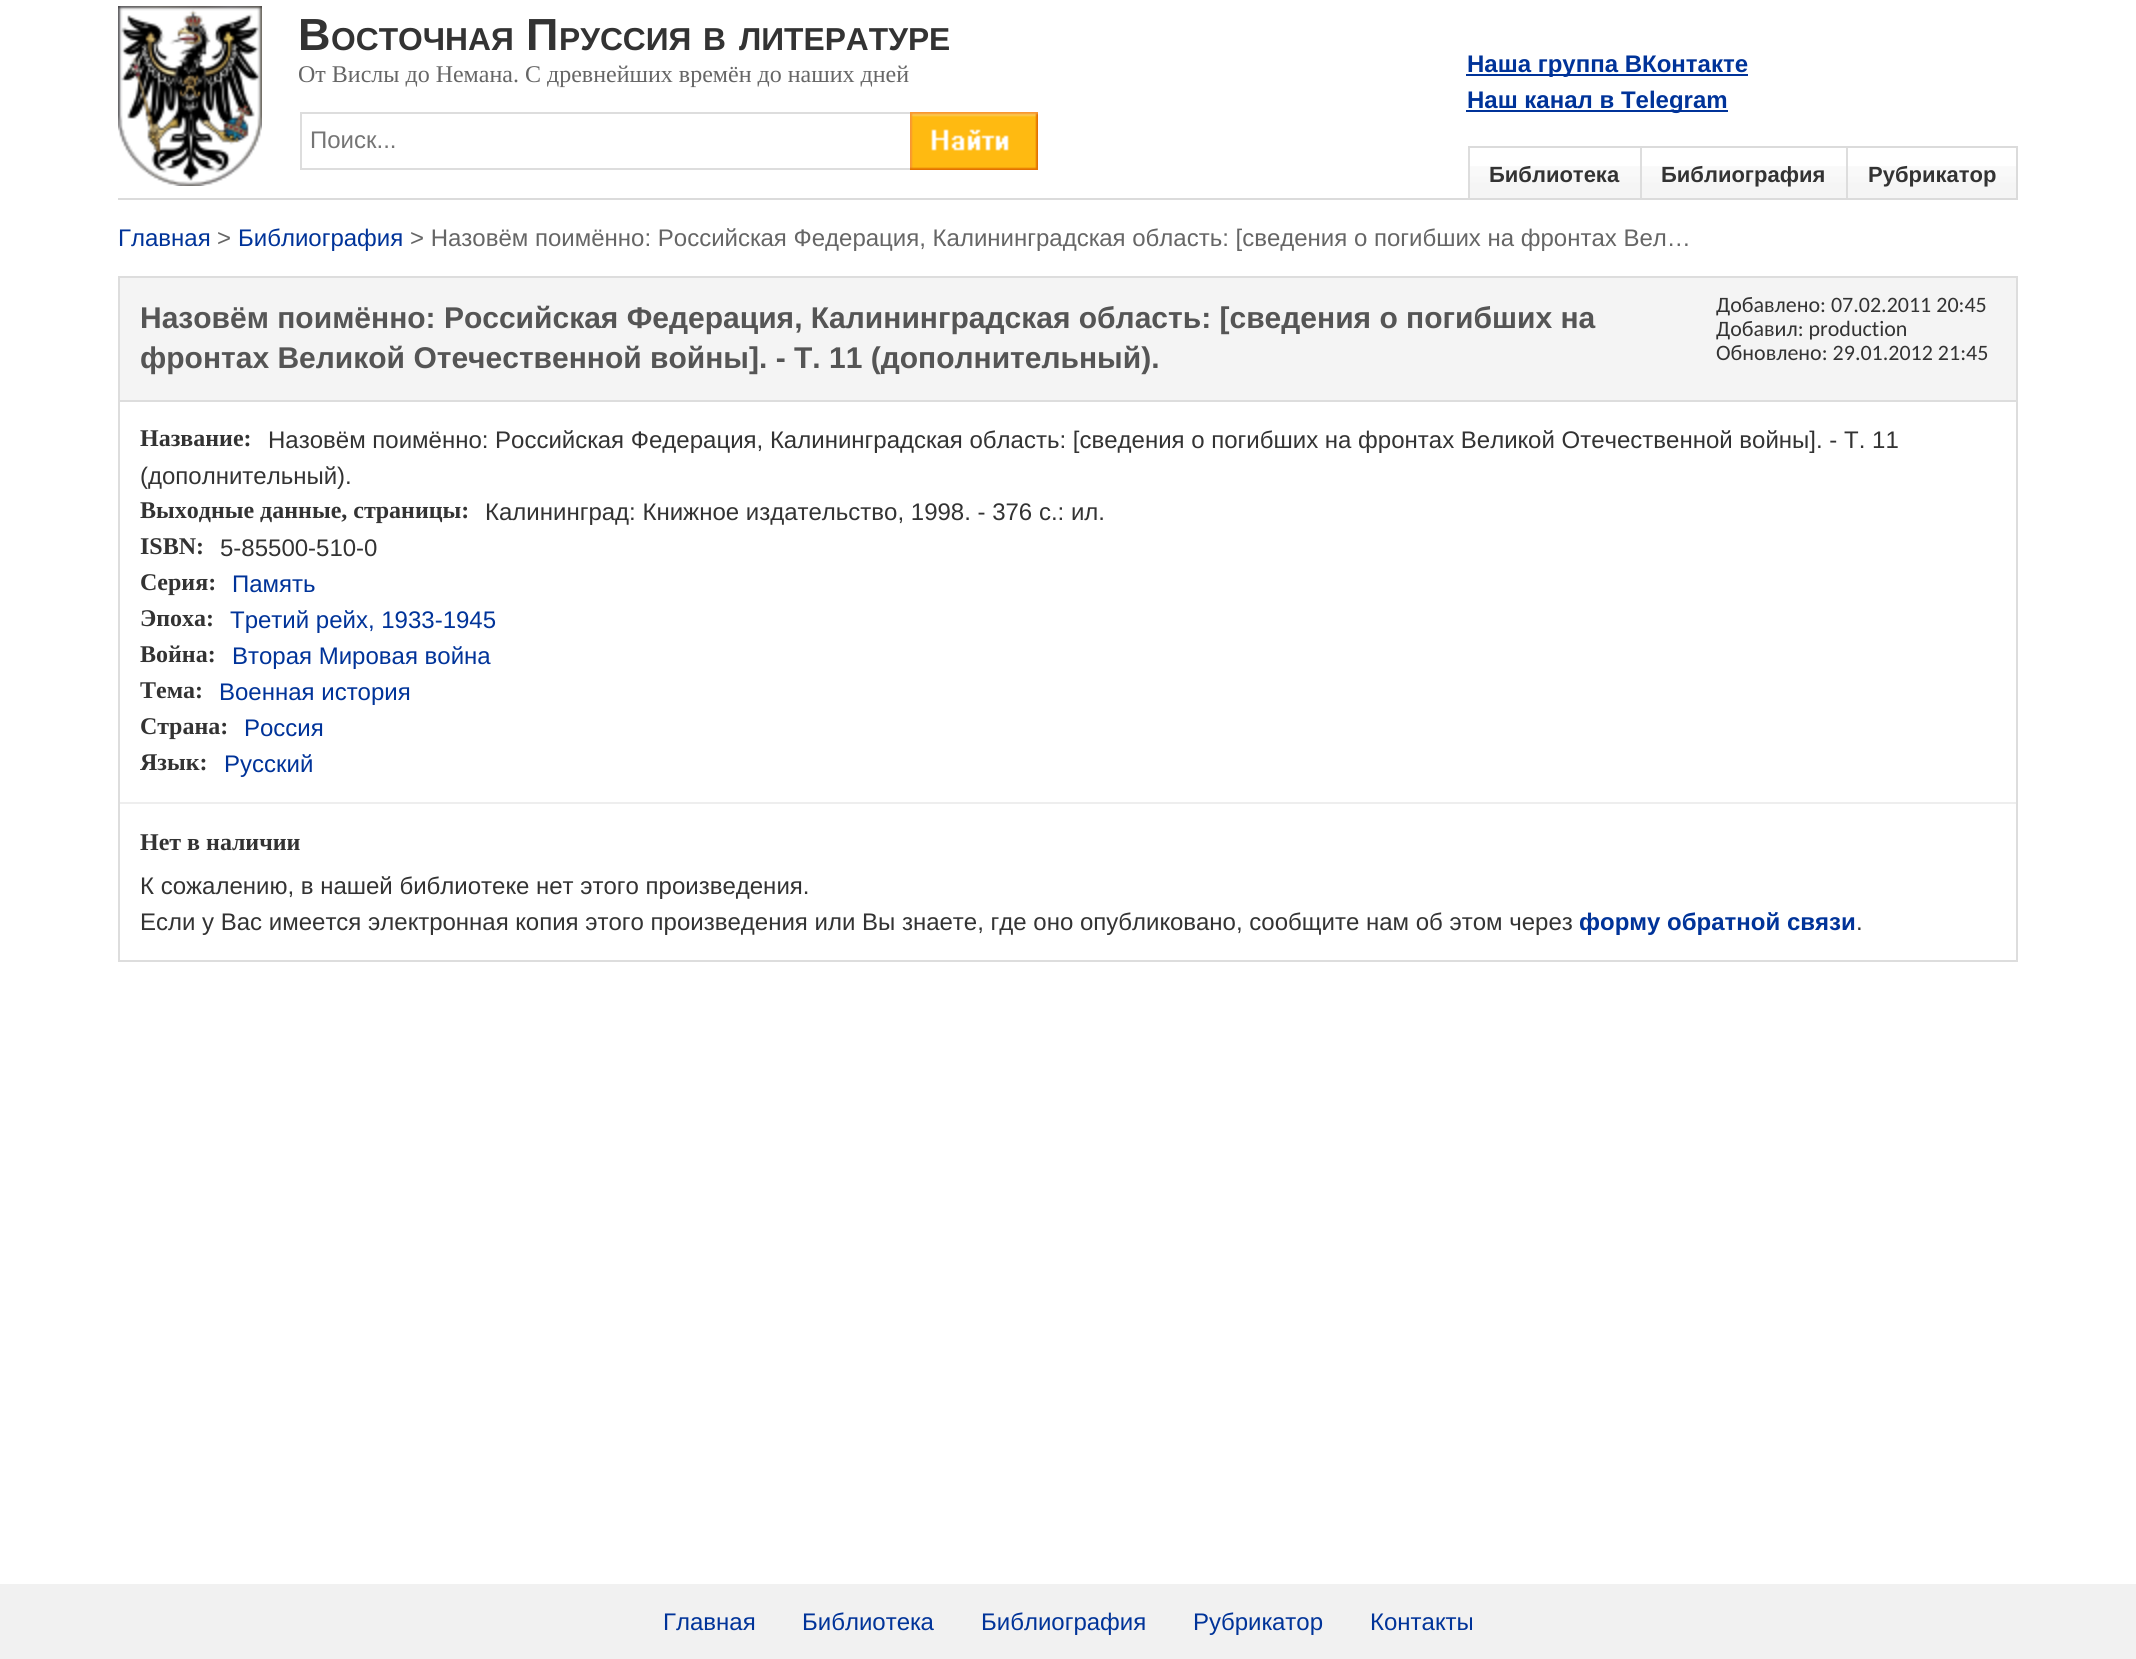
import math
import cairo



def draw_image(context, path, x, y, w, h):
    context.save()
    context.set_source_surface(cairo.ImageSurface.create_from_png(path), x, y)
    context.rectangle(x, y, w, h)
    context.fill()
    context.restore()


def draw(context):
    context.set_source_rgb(1, 1, 1)
    context.paint()
    context.set_source_rgb(219 / 255, 219 / 255, 219 / 255)
    context.rectangle(118, 198, 1900, 2)
    context.fill()
    draw_image(context, "images/1.png", 118, 6, 144, 180)
    context.set_source_rgb(221 / 255, 221 / 255, 221 / 255)
    context.rectangle(300, 112, 610, 2)
    context.fill()
    context.rectangle(300, 168, 610, 2)
    context.fill()
    context.rectangle(300, 112, 2, 58)
    context.fill()
    draw_image(context, "images/2.png", 910, 112, 128, 58)
    context.set_source_rgb(0, 51 / 255, 153 / 255)
    context.rectangle(1466, 74, 282, 2)
    context.fill()
    context.rectangle(1466, 110, 262, 2)
    context.fill()
    context.set_source_rgb(219 / 255, 219 / 255, 219 / 255)
    context.rectangle(1468, 146, 550, 2)
    context.fill()
    context.rectangle(2016, 146, 2, 54)
    context.fill()
    draw_image(context, "images/3.png", 1470, 166, 170, 32)
    context.set_source_rgb(221 / 255, 221 / 255, 221 / 255)
    context.rectangle(1468, 148, 2, 50)
    context.fill()
    draw_image(context, "images/4.png", 1642, 166, 204, 32)
    context.rectangle(1640, 148, 2, 50)
    context.fill()
    draw_image(context, "images/5.png", 1848, 166, 168, 32)
    context.rectangle(1846, 148, 2, 50)
    context.fill()
    context.rectangle(119, 277, 1898, 684)
    context.stroke()
    context.set_source_rgb(244 / 255, 244 / 255, 244 / 255)
    context.rectangle(120, 278, 1896, 122)
    context.fill()
    context.set_source_rgb(221 / 255, 221 / 255, 221 / 255)
    context.rectangle(120, 400, 1896, 2)
    context.fill()
    context.set_source_rgb(238 / 255, 238 / 255, 238 / 255)
    context.rectangle(120, 802, 1896, 2)
    context.fill()
    context.set_source_rgb(241 / 255, 241 / 255, 241 / 255)
    context.rectangle(0, 1584, 2136, 75)
    context.fill()
    context.select_font_face("Liberation Sans", cairo.FontSlant.NORMAL, cairo.FontWeight.BOLD)
    context.set_font_size(45)
    context.set_source_rgb(51 / 255, 51 / 255, 51 / 255)
    context.move_to(298, 50)
    context.show_text("В")
    context.set_font_size(31.75)
    context.move_to(331, 50)
    context.show_text("ОСТОЧНАЯ")
    context.set_font_size(45)
    context.move_to(526, 50)
    context.show_text("П")
    context.set_font_size(31.75)
    context.move_to(559, 50)
    context.show_text("РУССИЯ")
    context.move_to(703, 50)
    context.show_text("В")
    context.move_to(739, 50)
    context.show_text("ЛИТЕРАТУРЕ")
    context.select_font_face("Liberation Serif")
    context.set_font_size(24)
    context.set_source_rgb(102 / 255, 102 / 255, 102 / 255)
    context.move_to(298, 82)
    context.show_text("От Вислы до Немана. С древнейших времён до наших дней")
    context.select_font_face("Liberation Sans")
    context.set_source_rgb(117 / 255, 117 / 255, 117 / 255)
    context.move_to(310, 148)
    context.show_text("Поиск...")
    context.select_font_face("Liberation Sans", cairo.FontSlant.NORMAL, cairo.FontWeight.BOLD)
    context.set_source_rgb(0, 51 / 255, 153 / 255)
    context.move_to(1467, 72)
    context.show_text("Наша группа ВКонтакте")
    context.move_to(1467, 108)
    context.show_text("Наш канал в Telegram")
    context.set_font_size(22)
    context.set_source_rgb(51 / 255, 51 / 255, 51 / 255)
    context.move_to(1489, 182)
    context.show_text("Библиотека")
    context.move_to(1661, 182)
    context.show_text("Библиография")
    context.move_to(1868, 182)
    context.show_text("Рубрикатор")
    context.select_font_face("Liberation Sans")
    context.set_font_size(24)
    context.set_source_rgb(0, 51 / 255, 153 / 255)
    context.move_to(118, 246)
    context.show_text("Главная")
    context.set_source_rgb(102 / 255, 102 / 255, 102 / 255)
    context.move_to(217, 246)
    context.show_text(">")
    context.set_source_rgb(0, 51 / 255, 153 / 255)
    context.move_to(238, 246)
    context.show_text("Библиография")
    context.set_source_rgb(102 / 255, 102 / 255, 102 / 255)
    context.move_to(410, 246)
    context.show_text("> Назовём поимённо: Российская Федерация, Калининградская область: [сведения о погибших на фронтах Вел…")
    context.select_font_face("Liberation Sans", cairo.FontSlant.NORMAL, cairo.FontWeight.BOLD)
    context.set_font_size(30)
    context.set_source_rgb(85 / 255, 85 / 255, 85 / 255)
    context.move_to(140, 328)
    context.show_text("Назовём поимённо: Российская Федерация, Калининградская область: [сведения о погибших на")
    context.move_to(140, 368)
    context.show_text("фронтах Великой Отечественной войны]. - Т. 11 (дополнительный).")
    context.select_font_face("Carlito")
    context.set_font_size(22)
    context.set_source_rgb(51 / 255, 51 / 255, 51 / 255)
    context.move_to(1716, 312)
    context.show_text("Добавлено: 07.02.2011 20:45")
    context.move_to(1716, 336)
    context.show_text("Добавил: production")
    context.move_to(1716, 360)
    context.show_text("Обновлено: 29.01.2012 21:45")
    context.select_font_face("Liberation Serif", cairo.FontSlant.NORMAL, cairo.FontWeight.BOLD)
    context.set_font_size(24)
    context.move_to(140, 446)
    context.show_text("Название:")
    context.select_font_face("Liberation Sans")
    context.move_to(268, 448)
    context.show_text("Назовём поимённо: Российская Федерация, Калининградская область: [сведения о погибших на фронтах Великой Отечественной войны]. - Т. 11")
    context.move_to(140, 484)
    context.show_text("(дополнительный).")
    context.select_font_face("Liberation Serif", cairo.FontSlant.NORMAL, cairo.FontWeight.BOLD)
    context.move_to(140, 518)
    context.show_text("Выходные данные, страницы:")
    context.select_font_face("Liberation Sans")
    context.move_to(485, 520)
    context.show_text("Калининград: Книжное издательство, 1998. - 376 с.: ил.")
    context.select_font_face("Liberation Serif", cairo.FontSlant.NORMAL, cairo.FontWeight.BOLD)
    context.move_to(140, 554)
    context.show_text("ISBN:")
    context.select_font_face("Liberation Sans")
    context.move_to(220, 556)
    context.show_text("5-85500-510-0")
    context.select_font_face("Liberation Serif", cairo.FontSlant.NORMAL, cairo.FontWeight.BOLD)
    context.move_to(140, 590)
    context.show_text("Серия:")
    context.select_font_face("Liberation Sans")
    context.set_source_rgb(0, 51 / 255, 153 / 255)
    context.move_to(232, 592)
    context.show_text("Память")
    context.select_font_face("Liberation Serif", cairo.FontSlant.NORMAL, cairo.FontWeight.BOLD)
    context.set_source_rgb(51 / 255, 51 / 255, 51 / 255)
    context.move_to(140, 626)
    context.show_text("Эпоха:")
    context.select_font_face("Liberation Sans")
    context.set_source_rgb(0, 51 / 255, 153 / 255)
    context.move_to(230, 628)
    context.show_text("Третий рейх, 1933-1945")
    context.select_font_face("Liberation Serif", cairo.FontSlant.NORMAL, cairo.FontWeight.BOLD)
    context.set_source_rgb(51 / 255, 51 / 255, 51 / 255)
    context.move_to(140, 662)
    context.show_text("Война:")
    context.select_font_face("Liberation Sans")
    context.set_source_rgb(0, 51 / 255, 153 / 255)
    context.move_to(232, 664)
    context.show_text("Вторая Мировая война")
    context.select_font_face("Liberation Serif", cairo.FontSlant.NORMAL, cairo.FontWeight.BOLD)
    context.set_source_rgb(51 / 255, 51 / 255, 51 / 255)
    context.move_to(140, 698)
    context.show_text("Тема:")
    context.select_font_face("Liberation Sans")
    context.set_source_rgb(0, 51 / 255, 153 / 255)
    context.move_to(219, 700)
    context.show_text("Военная история")
    context.select_font_face("Liberation Serif", cairo.FontSlant.NORMAL, cairo.FontWeight.BOLD)
    context.set_source_rgb(51 / 255, 51 / 255, 51 / 255)
    context.move_to(140, 734)
    context.show_text("Страна:")
    context.select_font_face("Liberation Sans")
    context.set_source_rgb(0, 51 / 255, 153 / 255)
    context.move_to(244, 736)
    context.show_text("Россия")
    context.select_font_face("Liberation Serif", cairo.FontSlant.NORMAL, cairo.FontWeight.BOLD)
    context.set_source_rgb(51 / 255, 51 / 255, 51 / 255)
    context.move_to(140, 770)
    context.show_text("Язык:")
    context.select_font_face("Liberation Sans")
    context.set_source_rgb(0, 51 / 255, 153 / 255)
    context.move_to(224, 772)
    context.show_text("Русский")
    context.select_font_face("Liberation Serif", cairo.FontSlant.NORMAL, cairo.FontWeight.BOLD)
    context.set_source_rgb(51 / 255, 51 / 255, 51 / 255)
    context.move_to(140, 850)
    context.show_text("Нет в наличии")
    context.select_font_face("Liberation Sans")
    context.move_to(140, 894)
    context.show_text("К сожалению, в нашей библиотеке нет этого произведения.")
    context.move_to(140, 930)
    context.show_text("Если у Вас имеется электронная копия этого произведения или Вы знаете, где оно опубликовано, сообщите нам об этом через")
    context.select_font_face("Liberation Sans", cairo.FontSlant.NORMAL, cairo.FontWeight.BOLD)
    context.set_source_rgb(0, 51 / 255, 153 / 255)
    context.move_to(1579, 930)
    context.show_text("форму обратной связи")
    context.select_font_face("Liberation Sans")
    context.set_source_rgb(51 / 255, 51 / 255, 51 / 255)
    context.move_to(1856, 930)
    context.show_text(".")
    context.set_source_rgb(0, 51 / 255, 153 / 255)
    context.move_to(663, 1630)
    context.show_text("Главная")
    context.move_to(802, 1630)
    context.show_text("Библиотека")
    context.move_to(981, 1630)
    context.show_text("Библиография")
    context.move_to(1193, 1630)
    context.show_text("Рубрикатор")
    context.move_to(1370, 1630)
    context.show_text("Контакты")


surface = cairo.ImageSurface(cairo.Format.RGB24, 2136, 1659)
context = cairo.Context(surface)
options = cairo.FontOptions()
options.set_hint_metrics(cairo.HintMetrics.OFF)
options.set_hint_style(cairo.HintStyle.NONE)
context.set_font_options(options)
context.set_miter_limit(4)
draw(context)
surface.write_to_png("out.png")
